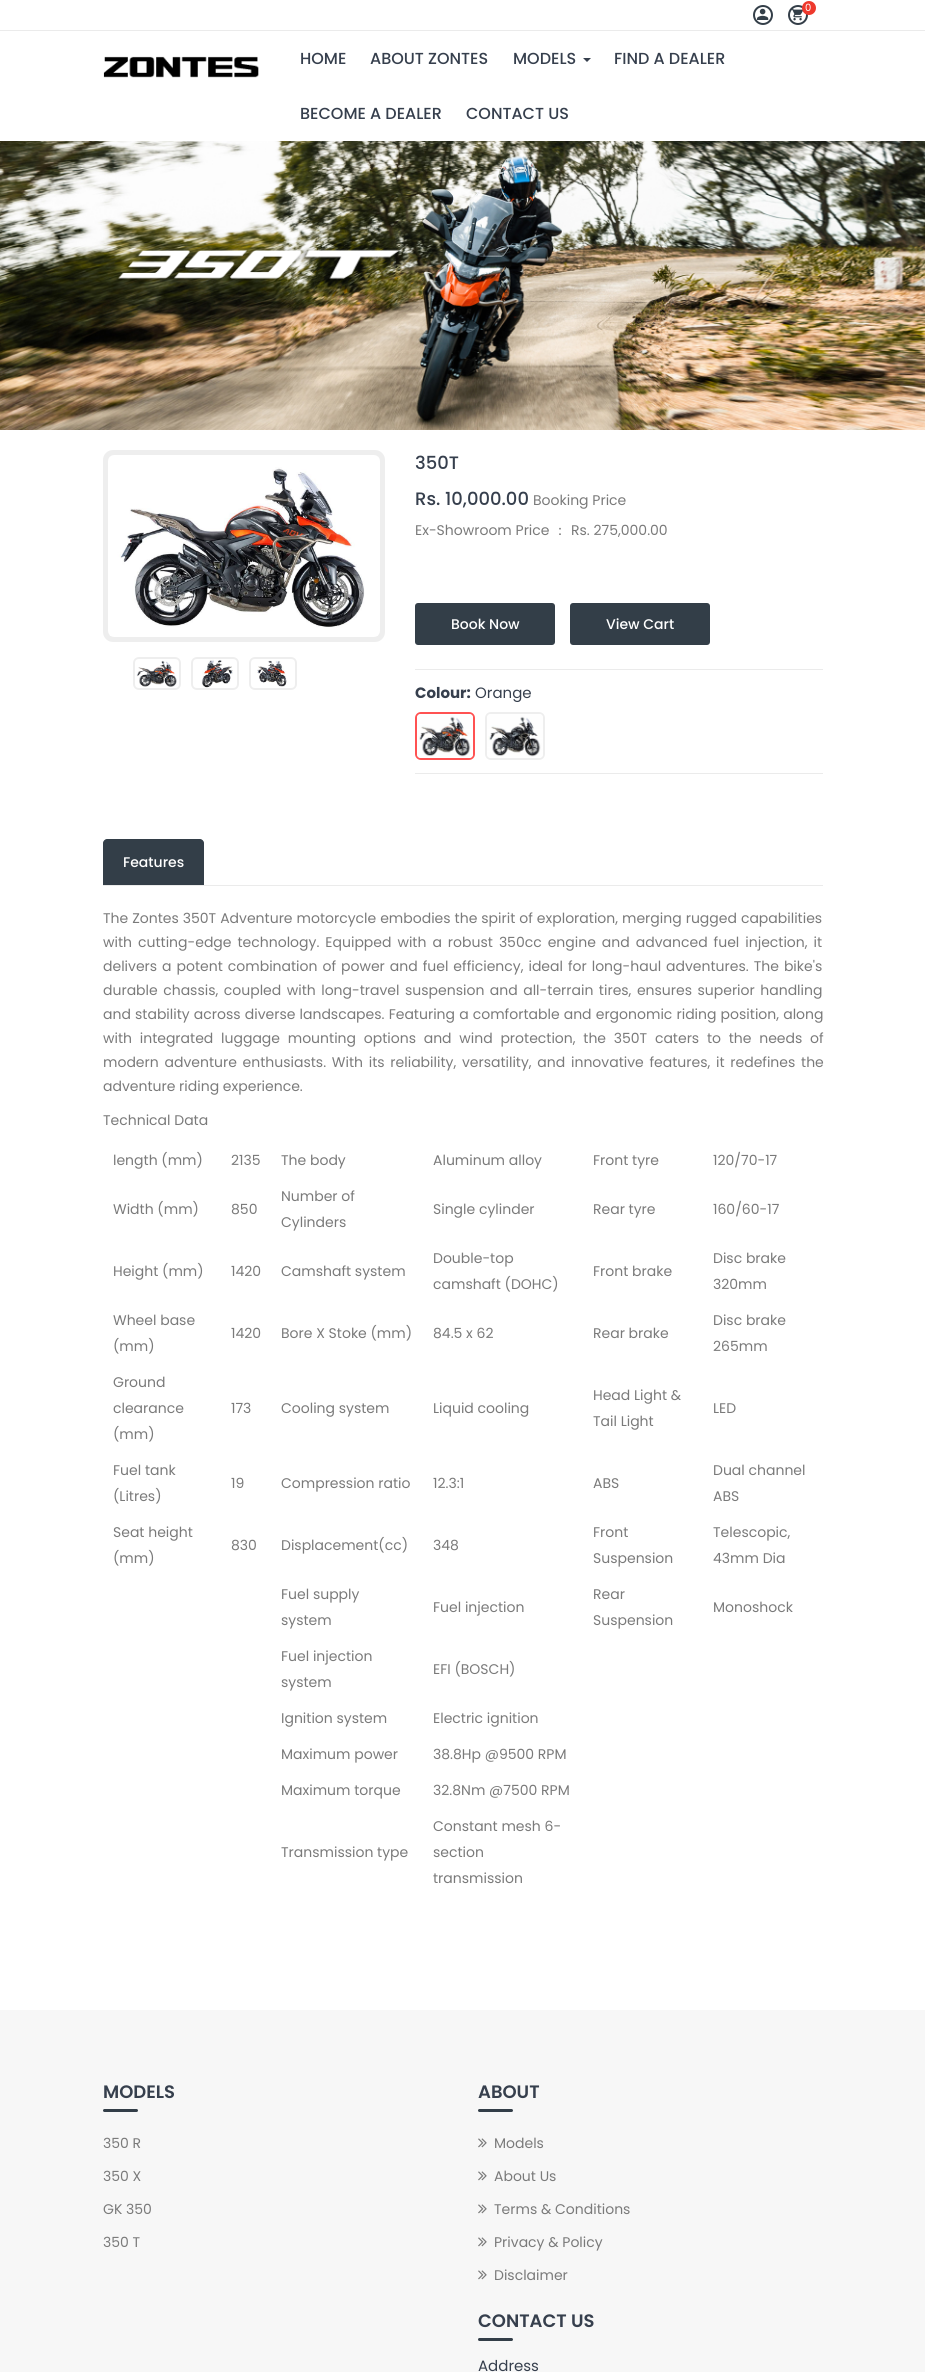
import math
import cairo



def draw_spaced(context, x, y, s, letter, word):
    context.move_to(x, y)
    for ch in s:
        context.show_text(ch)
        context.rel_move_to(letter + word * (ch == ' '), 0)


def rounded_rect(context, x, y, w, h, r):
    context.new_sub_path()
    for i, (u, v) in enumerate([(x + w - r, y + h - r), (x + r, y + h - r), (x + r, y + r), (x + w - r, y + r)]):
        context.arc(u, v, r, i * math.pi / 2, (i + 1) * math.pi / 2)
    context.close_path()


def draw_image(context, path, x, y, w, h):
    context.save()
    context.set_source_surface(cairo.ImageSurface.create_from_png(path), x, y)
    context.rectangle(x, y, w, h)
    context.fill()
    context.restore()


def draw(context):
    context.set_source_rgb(1, 1, 1)
    context.paint()
    context.arc(763, 15, 9, 0, 2 * math.pi)
    context.set_source_rgb(51 / 255, 62 / 255, 72 / 255)
    context.stroke()
    draw_image(context, "images/1.png", 757, 8, 12, 12)
    context.arc(798, 15, 9, 0, 2 * math.pi)
    context.stroke()
    draw_image(context, "images/2.png", 792, 8, 11, 13)
    context.set_source_rgb(238 / 255, 57 / 255, 45 / 255)
    context.arc(809, 8, 7, 0, 2 * math.pi)
    context.fill()
    context.set_source_rgb(235 / 255, 235 / 255, 235 / 255)
    context.rectangle(0, 30, 925, 1)
    context.fill()
    draw_image(context, "images/3.png", 103, 56, 156, 22)
    context.set_source_rgb(54 / 255, 63 / 255, 77 / 255)
    context.new_path()
    context.move_to(583, 58)
    context.line_to(591, 58)
    context.line_to(587, 62)
    context.close_path()
    context.fill()
    draw_image(context, "images/4.png", 0, 141, 925, 289)
    context.set_source_rgb(238 / 255, 238 / 255, 238 / 255)
    rounded_rect(context, 103, 450, 282, 192, 10)
    context.fill()
    draw_image(context, "images/5.png", 108, 455, 272, 182)
    rounded_rect(context, 133, 657, 48, 33, 6)
    context.fill()
    draw_image(context, "images/6.png", 135, 659, 44, 29)
    rounded_rect(context, 191, 657, 48, 33, 6)
    context.fill()
    draw_image(context, "images/7.png", 193, 659, 44, 29)
    rounded_rect(context, 249, 657, 48, 33, 6)
    context.fill()
    draw_image(context, "images/8.png", 251, 659, 44, 29)
    context.set_source_rgb(235 / 255, 235 / 255, 235 / 255)
    context.rectangle(415, 669, 408, 1)
    context.fill()
    context.set_source_rgb(51 / 255, 62 / 255, 72 / 255)
    rounded_rect(context, 415, 603, 140, 42, 3)
    context.fill()
    rounded_rect(context, 570, 603, 140, 42, 3)
    context.fill()
    context.set_source_rgb(235 / 255, 235 / 255, 235 / 255)
    context.rectangle(415, 773, 408, 1)
    context.fill()
    rounded_rect(context, 416, 713, 58, 46, 5)
    context.set_source_rgb(1, 82 / 255, 82 / 255)
    context.stroke()
    draw_image(context, "images/9.png", 417, 714, 56, 44)
    rounded_rect(context, 486, 713, 58, 46, 5)
    context.set_source_rgb(238 / 255, 238 / 255, 238 / 255)
    context.stroke()
    draw_image(context, "images/10.png", 487, 714, 56, 44)
    context.set_source_rgb(235 / 255, 235 / 255, 235 / 255)
    context.rectangle(103, 885, 720, 1)
    context.fill()
    context.set_source_rgb(51 / 255, 62 / 255, 72 / 255)
    context.new_path()
    context.move_to(107, 839)
    context.line_to(200, 839)
    context.curve_to(202, 839, 204, 841, 204, 843)
    context.line_to(204, 885)
    context.line_to(103, 885)
    context.line_to(103, 843)
    context.curve_to(103, 841, 105, 839, 107, 839)
    context.close_path()
    context.fill()
    context.set_source_rgb(247 / 255, 247 / 255, 247 / 255)
    context.rectangle(0, 2010, 925, 362)
    context.fill()
    context.set_source_rgb(51 / 255, 62 / 255, 72 / 255)
    rounded_rect(context, 103, 2109, 35, 3, 1.5)
    context.fill()
    rounded_rect(context, 478, 2109, 35, 3, 1.5)
    context.fill()
    draw_image(context, "images/11.png", 478, 2138, 9, 10)
    draw_image(context, "images/11.png", 478, 2171, 9, 10)
    draw_image(context, "images/11.png", 478, 2204, 9, 10)
    draw_image(context, "images/11.png", 478, 2237, 9, 10)
    draw_image(context, "images/11.png", 478, 2270, 9, 10)
    rounded_rect(context, 478, 2338, 35, 3, 1.5)
    context.fill()
    context.select_font_face("Poppins")
    context.set_font_size(10)
    context.set_source_rgb(1, 1, 1)
    context.move_to(805, 11)
    context.show_text("0")
    context.select_font_face("Poppins Medium")
    context.set_font_size(16)
    context.set_source_rgb(54 / 255, 63 / 255, 77 / 255)
    context.move_to(300, 64)
    context.show_text("HOME")
    context.move_to(370, 64)
    context.show_text("ABOUT ZONTES")
    context.move_to(513, 64)
    context.show_text("MODELS")
    context.move_to(614, 64)
    context.show_text("FIND A DEALER")
    context.move_to(300, 119)
    context.show_text("BECOME A DEALER")
    context.move_to(466, 119)
    context.show_text("CONTACT US")
    context.set_font_size(18)
    context.move_to(415, 469)
    context.show_text("350T")
    context.move_to(415, 505)
    context.show_text("Rs. 10,000.00")
    context.select_font_face("Poppins")
    context.set_font_size(14)
    context.set_source_rgb(122 / 255, 122 / 255, 122 / 255)
    context.move_to(533, 505)
    context.show_text("Booking Price")
    context.move_to(415, 535)
    context.show_text("Ex-Showroom Price")
    context.select_font_face("WenQuanYi Zen Hei Medium")
    context.move_to(553, 535)
    context.show_text("：")
    context.select_font_face("Poppins")
    context.move_to(571, 535)
    context.show_text("Rs. 275,000.00")
    context.select_font_face("Poppins Medium")
    context.set_source_rgb(1, 1, 1)
    context.move_to(451, 629)
    context.show_text("Book Now")
    context.move_to(606, 629)
    context.show_text("View Cart")
    context.select_font_face("Poppins", cairo.FontSlant.NORMAL, cairo.FontWeight.BOLD)
    context.set_font_size(15)
    context.set_source_rgb(54 / 255, 63 / 255, 77 / 255)
    context.move_to(415, 698)
    context.show_text("Colour:")
    context.select_font_face("Poppins")
    context.move_to(475, 698)
    context.show_text("Orange")
    context.select_font_face("Poppins Medium")
    context.set_font_size(14)
    context.set_source_rgb(1, 1, 1)
    context.move_to(123, 867)
    context.show_text("Features")
    context.select_font_face("Poppins")
    context.set_source_rgb(122 / 255, 122 / 255, 122 / 255)
    draw_spaced(context, 103, 923, "The Zontes 350T Adventure motorcycle embodies the spirit of exploration, merging rugged capabilities", 0, 0.25)
    draw_spaced(context, 103, 947, "with cutting-edge technology. Equipped with a robust 350cc engine and advanced fuel injection, it", 0, 2.25)
    draw_spaced(context, 103, 971, "delivers a potent combination of power and fuel efficiency, ideal for long-haul adventures. The bike's", 0, 1.25)
    draw_spaced(context, 103, 995, "durable chassis, coupled with long-travel suspension and all-terrain tires, ensures superior handling", 0, 1.75)
    draw_spaced(context, 103, 1019, "and stability across diverse landscapes. Featuring a comfortable and ergonomic riding position, along", 0, 0.4)
    draw_spaced(context, 103, 1043, "with integrated luggage mounting options and wind protection, the 350T caters to the needs of", 0, 4)
    draw_spaced(context, 103, 1067, "modern adventure enthusiasts. With its reliability, versatility, and innovative features, it redefines the", 0, 2)
    context.move_to(103, 1091)
    context.show_text("adventure riding experience.")
    context.move_to(103, 1125)
    context.show_text("Technical Data")
    context.move_to(113, 1165)
    context.show_text("length (mm)")
    context.move_to(231, 1165)
    context.show_text("2135")
    context.move_to(281, 1165)
    context.show_text("The body")
    context.move_to(433, 1165)
    context.show_text("Aluminum alloy")
    context.move_to(593, 1165)
    context.show_text("Front tyre")
    context.move_to(713, 1165)
    context.show_text("120/70-17")
    context.move_to(113, 1214)
    context.show_text("Width (mm)")
    context.move_to(231, 1214)
    context.show_text("850")
    context.move_to(281, 1201)
    context.show_text("Number of")
    context.move_to(281, 1227)
    context.show_text("Cylinders")
    context.move_to(433, 1214)
    context.show_text("Single cylinder")
    context.move_to(593, 1214)
    context.show_text("Rear tyre")
    context.move_to(713, 1214)
    context.show_text("160/60-17")
    context.move_to(113, 1276)
    context.show_text("Height (mm)")
    context.move_to(231, 1276)
    context.show_text("1420")
    context.move_to(281, 1276)
    context.show_text("Camshaft system")
    context.move_to(433, 1263)
    context.show_text("Double-top")
    context.move_to(433, 1289)
    context.show_text("camshaft (DOHC)")
    context.move_to(593, 1276)
    context.show_text("Front brake")
    context.move_to(713, 1263)
    context.show_text("Disc brake")
    context.move_to(713, 1289)
    context.show_text("320mm")
    context.move_to(113, 1325)
    context.show_text("Wheel base")
    context.move_to(113, 1351)
    context.show_text("(mm)")
    context.move_to(231, 1338)
    context.show_text("1420")
    context.move_to(281, 1338)
    context.show_text("Bore X Stoke (mm)")
    context.move_to(433, 1338)
    context.show_text("84.5 x 62")
    context.move_to(593, 1338)
    context.show_text("Rear brake")
    context.move_to(713, 1325)
    context.show_text("Disc brake")
    context.move_to(713, 1351)
    context.show_text("265mm")
    context.move_to(113, 1387)
    context.show_text("Ground")
    context.move_to(113, 1413)
    context.show_text("clearance")
    context.move_to(113, 1439)
    context.show_text("(mm)")
    context.move_to(231, 1413)
    context.show_text("173")
    context.move_to(281, 1413)
    context.show_text("Cooling system")
    context.move_to(433, 1413)
    context.show_text("Liquid cooling")
    context.move_to(593, 1400)
    context.show_text("Head Light &")
    context.move_to(593, 1426)
    context.show_text("Tail Light")
    context.move_to(713, 1413)
    context.show_text("LED")
    context.move_to(113, 1475)
    context.show_text("Fuel tank")
    context.move_to(113, 1501)
    context.show_text("(Litres)")
    context.move_to(231, 1488)
    context.show_text("19")
    context.move_to(281, 1488)
    context.show_text("Compression ratio")
    context.move_to(433, 1488)
    context.show_text("12.3:1")
    context.move_to(593, 1488)
    context.show_text("ABS")
    context.move_to(713, 1475)
    context.show_text("Dual channel")
    context.move_to(713, 1501)
    context.show_text("ABS")
    context.move_to(113, 1537)
    context.show_text("Seat height")
    context.move_to(113, 1563)
    context.show_text("(mm)")
    context.move_to(231, 1550)
    context.show_text("830")
    context.move_to(281, 1550)
    context.show_text("Displacement(cc)")
    context.move_to(433, 1550)
    context.show_text("348")
    context.move_to(593, 1537)
    context.show_text("Front")
    context.move_to(593, 1563)
    context.show_text("Suspension")
    context.move_to(713, 1537)
    context.show_text("Telescopic,")
    context.move_to(713, 1563)
    context.show_text("43mm Dia")
    context.move_to(281, 1599)
    context.show_text("Fuel supply")
    context.move_to(281, 1625)
    context.show_text("system")
    context.move_to(433, 1612)
    context.show_text("Fuel injection")
    context.move_to(593, 1599)
    context.show_text("Rear")
    context.move_to(593, 1625)
    context.show_text("Suspension")
    context.move_to(713, 1612)
    context.show_text("Monoshock")
    context.move_to(281, 1661)
    context.show_text("Fuel injection")
    context.move_to(281, 1687)
    context.show_text("system")
    context.move_to(433, 1674)
    context.show_text("EFI (BOSCH)")
    context.move_to(281, 1723)
    context.show_text("Ignition system")
    context.move_to(433, 1723)
    context.show_text("Electric ignition")
    context.move_to(281, 1759)
    context.show_text("Maximum power")
    context.move_to(433, 1759)
    context.show_text("38.8Hp @9500 RPM")
    context.move_to(281, 1795)
    context.show_text("Maximum torque")
    context.move_to(433, 1795)
    context.show_text("32.8Nm @7500 RPM")
    context.move_to(281, 1857)
    context.show_text("Transmission type")
    context.move_to(433, 1831)
    context.show_text("Constant mesh 6-")
    context.move_to(433, 1857)
    context.show_text("section")
    context.move_to(433, 1883)
    context.show_text("transmission")
    context.select_font_face("Poppins SemiBold")
    context.set_font_size(18)
    context.set_source_rgb(54 / 255, 63 / 255, 77 / 255)
    context.move_to(103, 2098)
    context.show_text("MODELS")
    context.select_font_face("Poppins")
    context.set_font_size(14)
    context.set_source_rgb(122 / 255, 122 / 255, 122 / 255)
    context.move_to(103, 2148)
    context.show_text("350 R")
    context.move_to(103, 2181)
    context.show_text("350 X")
    context.move_to(103, 2214)
    context.show_text("GK 350")
    context.move_to(103, 2247)
    context.show_text("350 T")
    context.select_font_face("Poppins SemiBold")
    context.set_font_size(18)
    context.set_source_rgb(54 / 255, 63 / 255, 77 / 255)
    context.move_to(478, 2098)
    context.show_text("ABOUT")
    context.select_font_face("Poppins")
    context.set_font_size(14)
    context.set_source_rgb(122 / 255, 122 / 255, 122 / 255)
    context.move_to(494, 2148)
    context.show_text("Models")
    context.move_to(494, 2181)
    context.show_text("About Us")
    context.move_to(494, 2214)
    context.show_text("Terms & Conditions")
    context.move_to(494, 2247)
    context.show_text("Privacy & Policy")
    context.move_to(494, 2280)
    context.show_text("Disclaimer")
    context.select_font_face("Poppins SemiBold")
    context.set_font_size(18)
    context.set_source_rgb(54 / 255, 63 / 255, 77 / 255)
    context.move_to(478, 2327)
    context.show_text("CONTACT US")
    context.select_font_face("Poppins")
    context.set_font_size(15)
    context.move_to(478, 2371)
    context.show_text("Address")


surface = cairo.ImageSurface(cairo.Format.RGB24, 925, 2372)
context = cairo.Context(surface)
options = cairo.FontOptions()
options.set_hint_metrics(cairo.HintMetrics.OFF)
options.set_hint_style(cairo.HintStyle.NONE)
context.set_font_options(options)
context.set_miter_limit(4)
draw(context)
surface.write_to_png("out.png")
